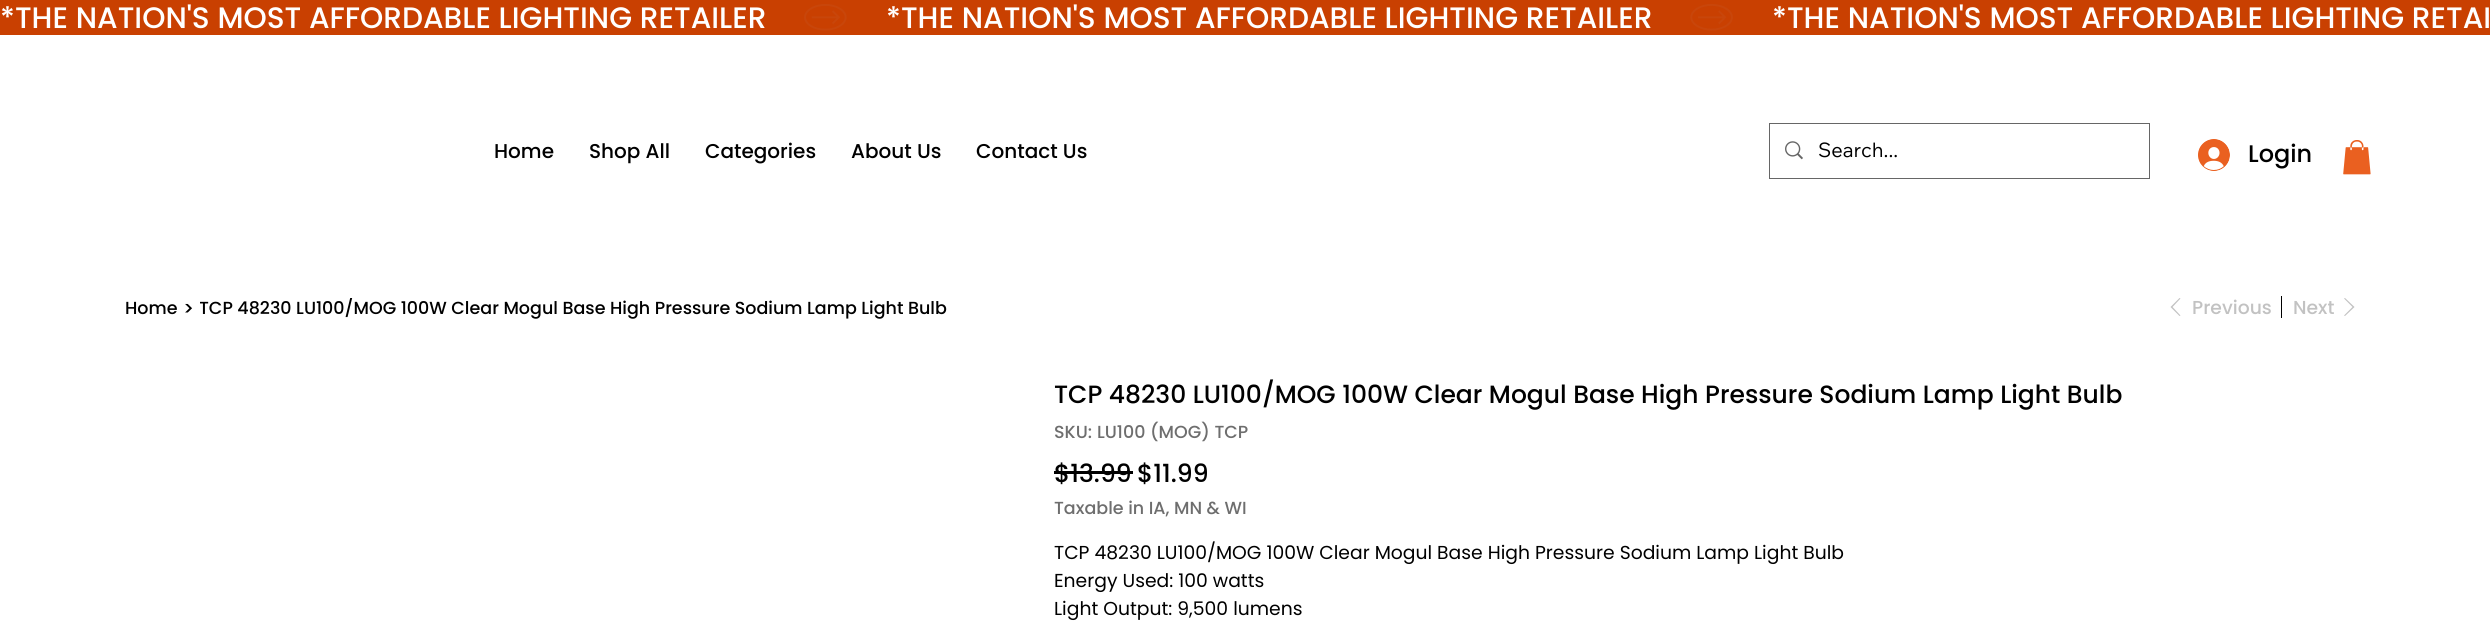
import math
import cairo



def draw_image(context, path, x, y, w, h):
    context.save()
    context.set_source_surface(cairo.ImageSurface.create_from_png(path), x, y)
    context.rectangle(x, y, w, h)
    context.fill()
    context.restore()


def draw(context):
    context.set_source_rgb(1, 1, 1)
    context.paint()
    context.set_source_rgb(201 / 255, 64 / 255, 1 / 255)
    context.rectangle(0, 0, 2490, 35)
    context.fill()
    draw_image(context, "images/1.png", 804, 4, 43, 27)
    draw_image(context, "images/2.png", 1690, 4, 43, 27)
    context.rectangle(1769.5, 123.5, 380, 55)
    context.set_source_rgb(102 / 255, 102 / 255, 102 / 255)
    context.set_line_width(1)
    context.stroke()
    draw_image(context, "images/3.png", 1785, 141, 18, 19)
    draw_image(context, "images/4.png", 2198, 139, 32, 32)
    draw_image(context, "images/5.png", 2343, 140, 28, 35)
    context.set_source_rgb(194 / 255, 194 / 255, 194 / 255)
    context.set_fill_rule(cairo.FillRule.EVEN_ODD)
    context.new_path()
    context.move_to(2179.5, 298)
    context.line_to(2180.5, 298.5)
    context.line_to(2172.5, 307)
    context.line_to(2180.5, 315.5)
    context.line_to(2179.5, 316)
    context.line_to(2170.5, 307)
    context.close_path()
    context.fill()
    context.set_source_rgb(0, 0, 0)
    context.rectangle(2281, 296, 1, 22)
    context.fill()
    context.set_source_rgb(194 / 255, 194 / 255, 194 / 255)
    context.new_path()
    context.move_to(2345, 316)
    context.line_to(2344, 315.5)
    context.line_to(2352.5, 307)
    context.line_to(2344, 298.5)
    context.line_to(2345, 298)
    context.line_to(2354.5, 307)
    context.close_path()
    context.fill()
    context.set_source_rgb(0, 0, 0)
    context.rectangle(1054, 471, 79, 3)
    context.fill()
    context.select_font_face("Poppins Medium")
    context.set_font_size(29.6)
    context.set_source_rgb(1, 1, 1)
    context.move_to(0, 28)
    context.show_text("*THE NATION'S MOST AFFORDABLE LIGHTING RETAILER")
    context.move_to(886, 28)
    context.show_text("*THE NATION'S MOST AFFORDABLE LIGHTING RETAILER")
    context.move_to(1772, 28)
    context.show_text("*THE NATION'S MOST AFFORDABLE LIGHTING RETAI")
    context.set_font_size(20)
    context.set_source_rgb(0, 0, 0)
    context.move_to(494, 158)
    context.show_text("Home")
    context.move_to(589, 158)
    context.show_text("Shop All")
    context.move_to(705, 158)
    context.show_text("Categories")
    context.move_to(851, 158)
    context.show_text("About Us")
    context.move_to(976, 158)
    context.show_text("Contact Us")
    context.select_font_face("Wix Madefor Text")
    context.move_to(1818, 157)
    context.show_text("Search...")
    context.select_font_face("Poppins Medium")
    context.set_font_size(24)
    context.move_to(2248, 162)
    context.show_text("Login")
    context.set_font_size(17.5)
    context.move_to(125, 314)
    context.show_text("Home")
    context.set_font_size(18.75)
    context.move_to(183, 315)
    context.show_text(">")
    context.save()
    context.set_fill_rule(cairo.FillRule.WINDING)
    context.rectangle(200, 298, 748, 22)
    context.clip()
    context.set_font_size(17.5)
    context.move_to(199, 314)
    context.show_text("TCP 48230 LU100/MOG 100W Clear Mogul Base High Pressure Sodium Lamp Light Bulb")
    context.restore()
    context.set_source_rgb(194 / 255, 194 / 255, 194 / 255)
    context.move_to(2192, 314)
    context.show_text("Previous")
    context.move_to(2293, 314)
    context.show_text("Next")
    context.set_font_size(25)
    context.set_source_rgb(0, 0, 0)
    context.move_to(1054, 403)
    context.show_text("TCP 48230 LU100/MOG 100W Clear Mogul Base High Pressure Sodium Lamp Light Bulb")
    context.set_font_size(17.5)
    context.set_source_rgb(110 / 255, 110 / 255, 110 / 255)
    context.move_to(1054, 438)
    context.show_text("SKU:")
    context.move_to(1097, 438)
    context.show_text("LU100 (MOG) TCP")
    context.set_font_size(25)
    context.set_source_rgb(0, 0, 0)
    context.move_to(1054, 482)
    context.show_text("$13.99")
    context.move_to(1137, 482)
    context.show_text("$11.99")
    context.set_font_size(17.5)
    context.set_source_rgb(110 / 255, 110 / 255, 110 / 255)
    context.move_to(1054, 514)
    context.show_text("Taxable in IA, MN & WI")
    context.select_font_face("Poppins")
    context.set_font_size(18.75)
    context.set_source_rgb(0, 0, 0)
    context.move_to(1054, 559)
    context.show_text("TCP 48230 LU100/MOG 100W Clear Mogul Base High Pressure Sodium Lamp Light Bulb")
    context.move_to(1054, 587)
    context.show_text("Energy Used: 100 watts")
    context.move_to(1054, 615)
    context.show_text("Light Output: 9,500 lumens")


surface = cairo.ImageSurface(cairo.Format.RGB24, 2490, 632)
context = cairo.Context(surface)
options = cairo.FontOptions()
options.set_hint_metrics(cairo.HintMetrics.OFF)
options.set_hint_style(cairo.HintStyle.NONE)
context.set_font_options(options)
context.set_miter_limit(4)
draw(context)
surface.write_to_png("out.png")
